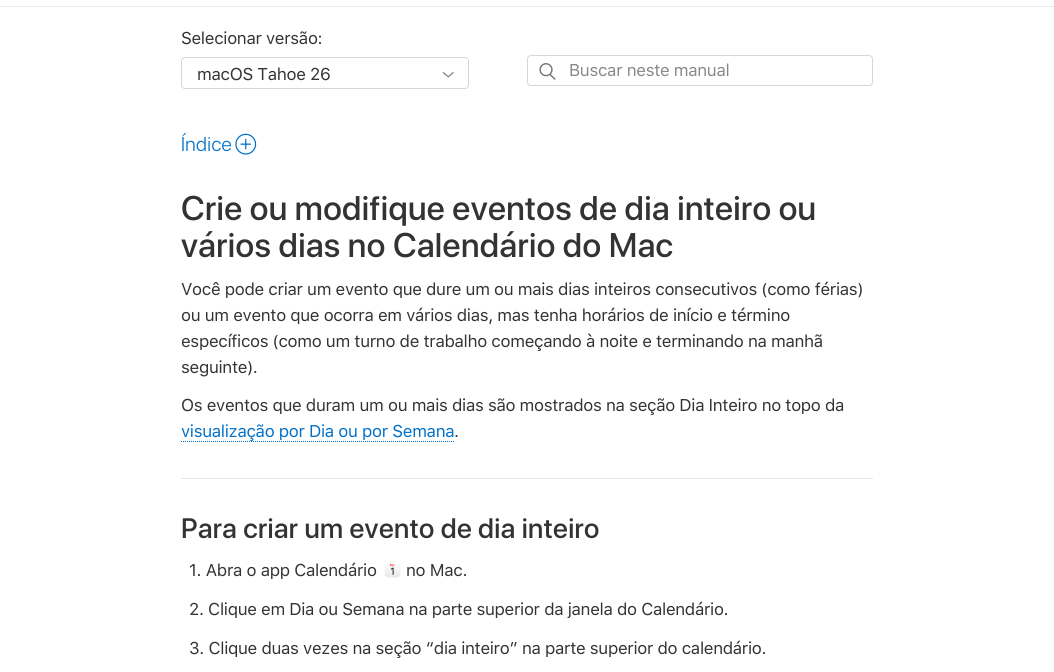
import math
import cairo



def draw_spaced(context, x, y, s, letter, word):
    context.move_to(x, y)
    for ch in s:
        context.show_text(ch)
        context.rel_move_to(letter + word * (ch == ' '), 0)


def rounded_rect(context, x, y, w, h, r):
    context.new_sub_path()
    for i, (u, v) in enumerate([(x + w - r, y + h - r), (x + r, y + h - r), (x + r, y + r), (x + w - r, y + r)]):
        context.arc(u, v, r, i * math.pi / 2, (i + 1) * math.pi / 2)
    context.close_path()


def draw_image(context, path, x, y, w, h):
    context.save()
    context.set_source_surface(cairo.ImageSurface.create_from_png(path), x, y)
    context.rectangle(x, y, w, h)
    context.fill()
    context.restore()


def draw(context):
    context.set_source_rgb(1, 1, 1)
    context.paint()
    context.set_source_rgb(235 / 255, 235 / 255, 235 / 255)
    context.rectangle(0, 6, 1054, 1)
    context.fill()
    rounded_rect(context, 181.5, 57.5, 287, 31, 3.5)
    context.set_source_rgb(214 / 255, 214 / 255, 214 / 255)
    context.set_line_width(1)
    context.stroke()
    draw_image(context, "images/1.png", 442, 71, 12, 7)
    rounded_rect(context, 527.5, 55.5, 345, 30, 3.5)
    context.stroke()
    draw_image(context, "images/2.png", 539, 63, 17, 17)
    draw_image(context, "images/3.png", 235, 133, 22, 22)
    context.new_path()
    context.move_to(181, 441.5)
    context.line_to(454, 441.5)
    context.set_source_rgb(0, 112 / 255, 201 / 255)
    context.set_dash([1, 1])
    context.stroke()
    context.set_source_rgb(230 / 255, 230 / 255, 230 / 255)
    context.rectangle(181, 478, 692, 1)
    context.fill()
    draw_image(context, "images/4.png", 384, 564, 17, 14)
    context.select_font_face("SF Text")
    context.set_font_size(17)
    context.set_source_rgb(51 / 255, 51 / 255, 51 / 255)
    draw_spaced(context, 181, 44, "Selecionar versão:", -0.35, 0)
    draw_spaced(context, 197, 80, "macOS Tahoe 26", -0.35, 0)
    context.set_source_rgb(136 / 255, 136 / 255, 136 / 255)
    draw_spaced(context, 569, 76, "Buscar neste manual", -0.35, 0)
    context.select_font_face("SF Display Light")
    context.set_font_size(20)
    context.set_source_rgb(0, 112 / 255, 201 / 255)
    draw_spaced(context, 181, 151, "Índice", 0.35, 0)
    context.select_font_face("SF Display Medium")
    context.set_font_size(34)
    context.set_source_rgb(51 / 255, 51 / 255, 51 / 255)
    draw_spaced(context, 181, 220, "Crie ou modifique eventos de dia inteiro ou", 0.35, 0)
    draw_spaced(context, 181, 257, "vários dias no Calendário do Mac", 0.35, 0)
    context.select_font_face("SF Text")
    context.set_font_size(17)
    draw_spaced(context, 181, 295, "Você pode criar um evento que dure um ou mais dias inteiros consecutivos (como férias)", -0.35, 0)
    draw_spaced(context, 181, 321, "ou um evento que ocorra em vários dias, mas tenha horários de início e término", -0.35, 0)
    draw_spaced(context, 181, 347, "específicos (como um turno de trabalho começando à noite e terminando na manhã", -0.35, 0)
    draw_spaced(context, 181, 373, "seguinte).", -0.35, 0)
    draw_spaced(context, 181, 411, "Os eventos que duram um ou mais dias são mostrados na seção Dia Inteiro no topo da", -0.35, 0)
    context.set_source_rgb(0, 112 / 255, 201 / 255)
    draw_spaced(context, 181, 437, "visualização por Dia ou por Semana", -0.35, 0)
    context.set_source_rgb(51 / 255, 51 / 255, 51 / 255)
    draw_spaced(context, 454, 437, ".", -0.35, 0)
    context.select_font_face("SF Display Medium")
    context.set_font_size(28)
    draw_spaced(context, 181, 538, "Para criar um evento de dia inteiro", 0.35, 0)
    context.select_font_face("SF Text")
    context.set_font_size(17)
    draw_spaced(context, 189, 576, "1. Abra o app Calendário", -0.35, 0)
    draw_spaced(context, 406, 576, "no Mac.", -0.35, 0)
    draw_spaced(context, 189, 615, "2. Clique em Dia ou Semana na parte superior da janela do Calendário.", -0.35, 0)
    draw_spaced(context, 189, 654, "3. Clique duas vezes na seção “dia inteiro” na parte superior do calendário.", -0.35, 0)


surface = cairo.ImageSurface(cairo.Format.RGB24, 1054, 672)
context = cairo.Context(surface)
options = cairo.FontOptions()
options.set_hint_metrics(cairo.HintMetrics.OFF)
options.set_hint_style(cairo.HintStyle.NONE)
context.set_font_options(options)
context.set_miter_limit(4)
draw(context)
surface.write_to_png("out.png")
